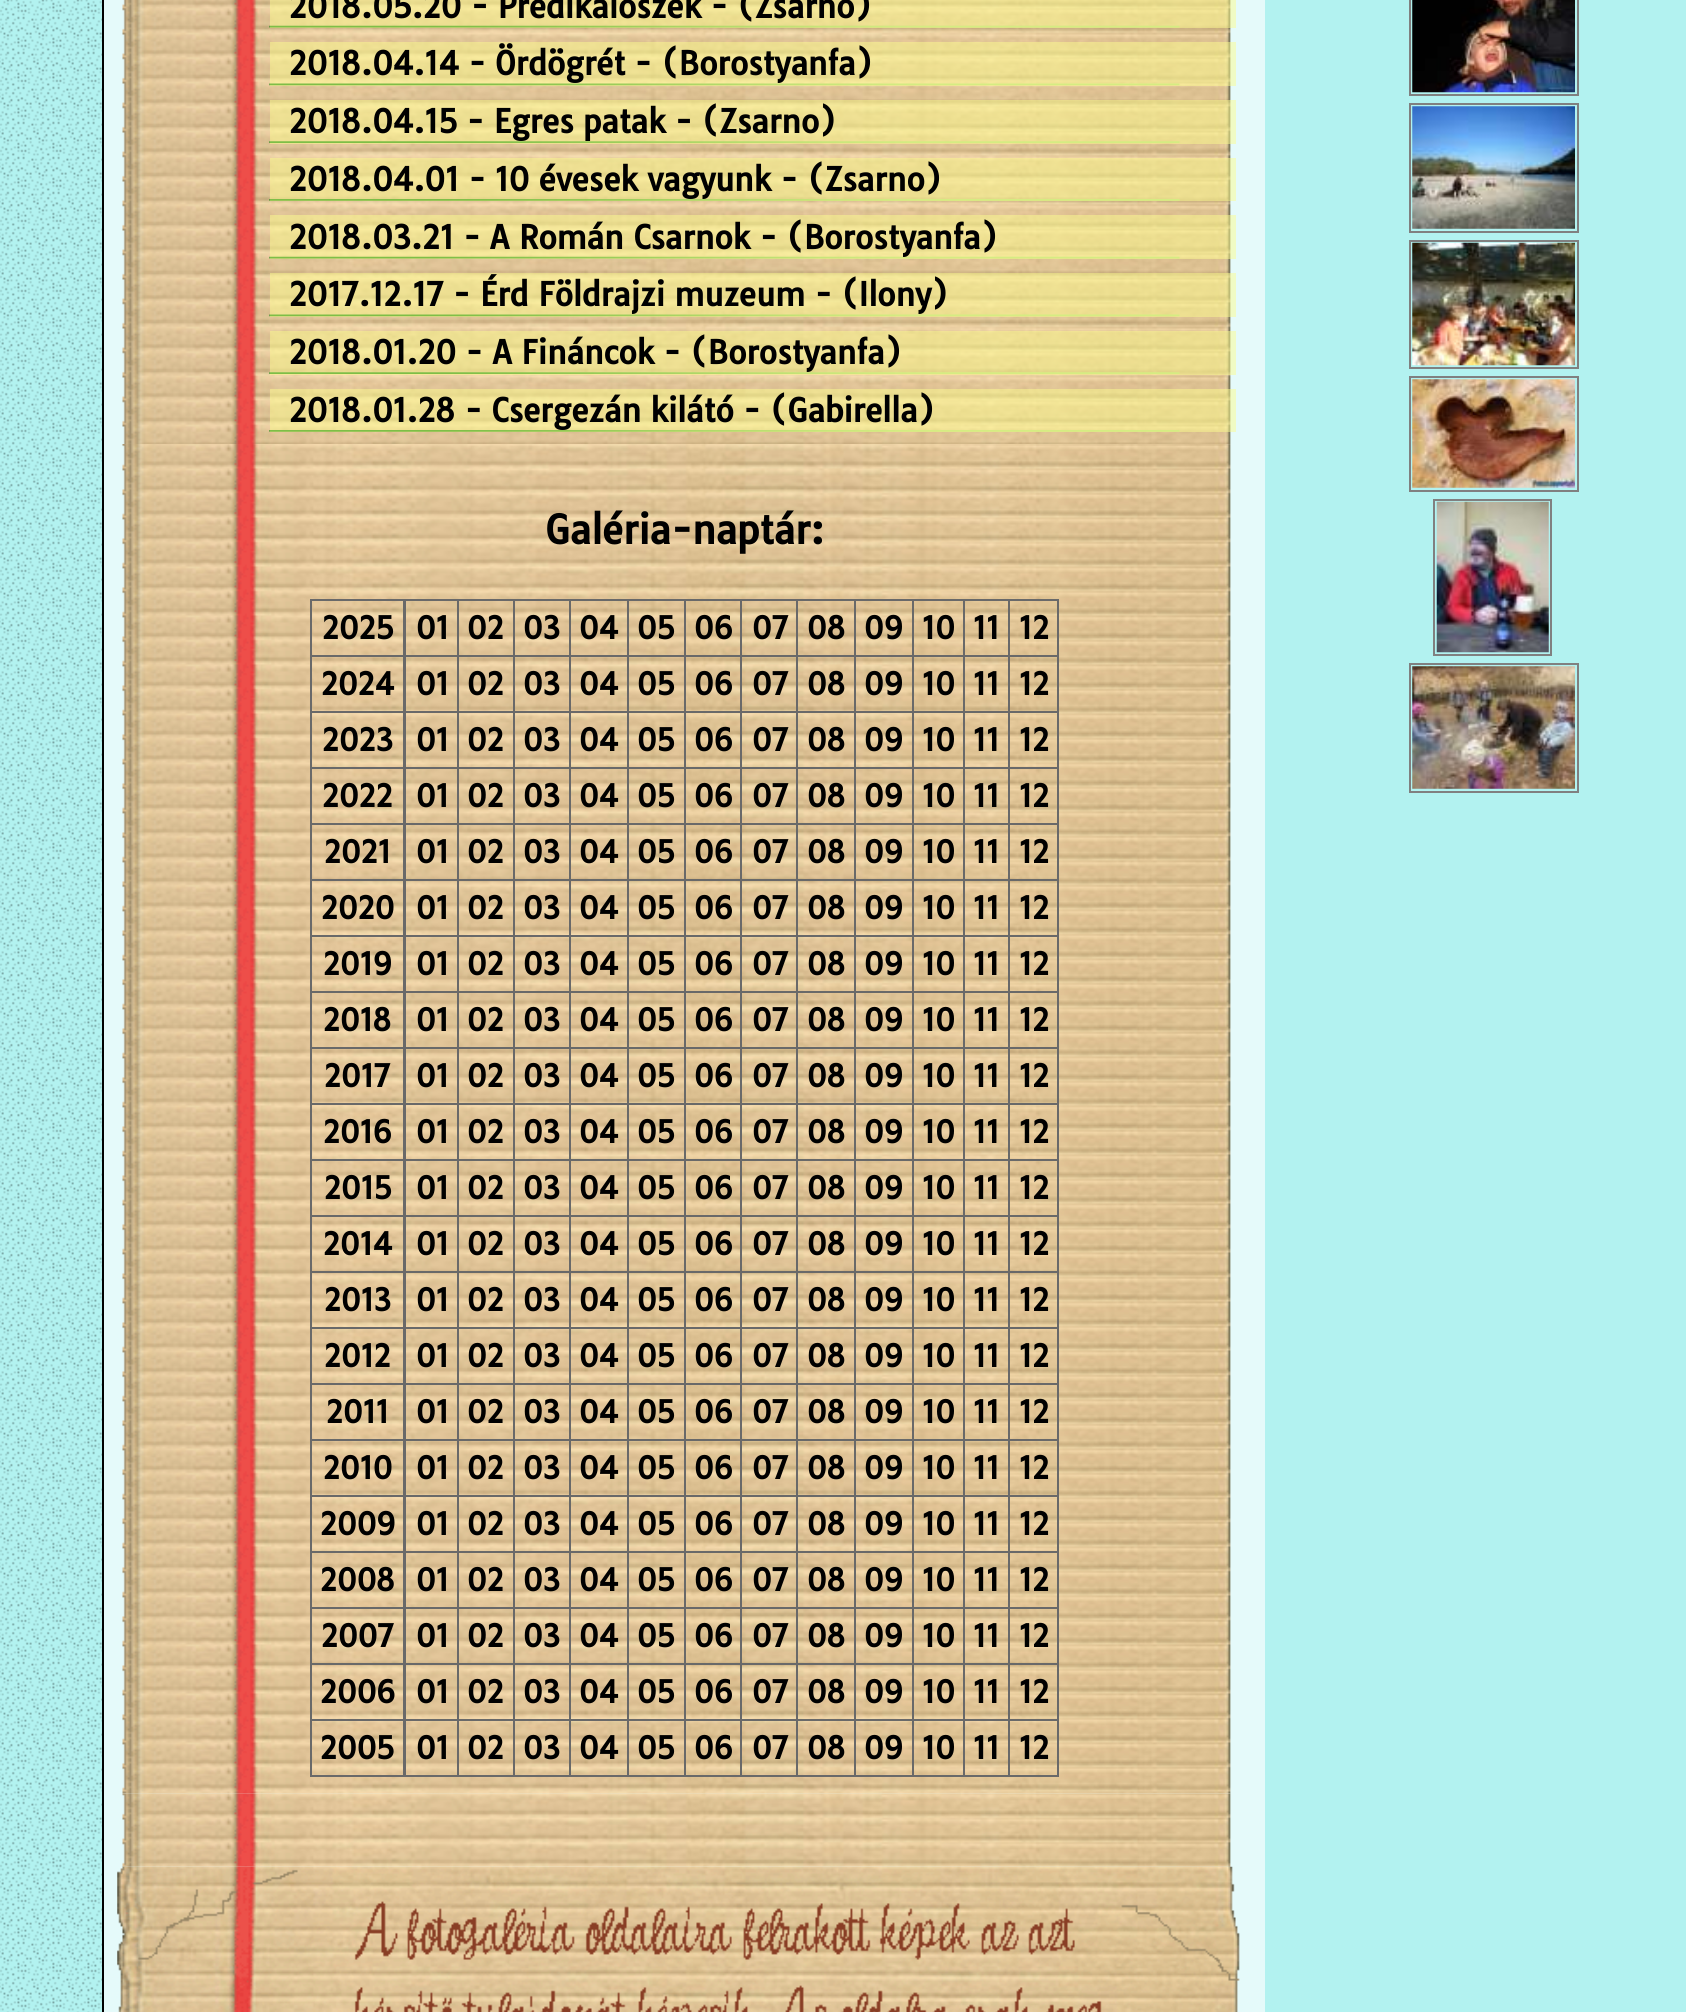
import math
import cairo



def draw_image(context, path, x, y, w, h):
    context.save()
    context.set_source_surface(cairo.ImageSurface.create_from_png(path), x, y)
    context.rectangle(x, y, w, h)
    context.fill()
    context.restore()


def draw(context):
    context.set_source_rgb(178 / 255, 242 / 255, 240 / 255)
    context.paint()
    draw_image(context, "images/1.png", 0, 0, 102, 2012)
    context.set_source_rgb(229 / 255, 250 / 255, 250 / 255)
    context.rectangle(104, 0, 1161, 2012)
    context.fill()
    context.rectangle(103, -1, 1482, 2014)
    context.set_source_rgb(0, 0, 0)
    context.stroke()
    draw_image(context, "images/2.png", 122, 0, 1109, 444)
    draw_image(context, "images/3.png", 269, 25, 911, 3)
    context.set_source_rgba(252 / 255, 253 / 255, 142 / 255, 0.5)
    context.rectangle(270, 0, 966, 28)
    context.fill()
    draw_image(context, "images/4.png", 269, 83, 911, 3)
    context.rectangle(270, 42, 966, 44)
    context.fill()
    draw_image(context, "images/5.png", 269, 141, 911, 2)
    context.rectangle(270, 100, 966, 44)
    context.fill()
    draw_image(context, "images/6.png", 269, 199, 911, 2)
    context.rectangle(270, 158, 966, 43)
    context.fill()
    draw_image(context, "images/7.png", 269, 256, 911, 3)
    context.rectangle(270, 215, 966, 44)
    context.fill()
    draw_image(context, "images/8.png", 269, 314, 911, 3)
    context.rectangle(270, 273, 966, 44)
    context.fill()
    draw_image(context, "images/9.png", 269, 372, 911, 2)
    context.rectangle(270, 331, 966, 44)
    context.fill()
    draw_image(context, "images/10.png", 269, 430, 911, 2)
    context.rectangle(270, 389, 966, 43)
    context.fill()
    draw_image(context, "images/11.png", 122, 444, 1109, 1350)
    context.set_source_rgb(105 / 255, 105 / 255, 105 / 255)
    context.rectangle(310, 599, 94, 2)
    context.fill()
    context.rectangle(310, 655, 94, 2)
    context.fill()
    context.rectangle(310, 711, 94, 2)
    context.fill()
    context.rectangle(310, 767, 94, 2)
    context.fill()
    context.rectangle(310, 823, 94, 2)
    context.fill()
    context.rectangle(310, 879, 94, 2)
    context.fill()
    context.rectangle(310, 935, 94, 2)
    context.fill()
    context.rectangle(310, 991, 94, 2)
    context.fill()
    context.rectangle(310, 1047, 94, 2)
    context.fill()
    context.rectangle(310, 1103, 94, 2)
    context.fill()
    context.rectangle(310, 1159, 94, 2)
    context.fill()
    context.rectangle(310, 1215, 94, 2)
    context.fill()
    context.rectangle(310, 1271, 94, 2)
    context.fill()
    context.rectangle(310, 1327, 94, 2)
    context.fill()
    context.rectangle(310, 1383, 94, 2)
    context.fill()
    context.rectangle(310, 1439, 94, 2)
    context.fill()
    context.rectangle(310, 1495, 94, 2)
    context.fill()
    context.rectangle(310, 1551, 94, 2)
    context.fill()
    context.rectangle(310, 1607, 94, 2)
    context.fill()
    context.rectangle(310, 1663, 94, 2)
    context.fill()
    context.rectangle(310, 1719, 94, 2)
    context.fill()
    context.rectangle(403, 1719, 1, 57)
    context.fill()
    context.rectangle(403, 1663, 1, 57)
    context.fill()
    context.rectangle(403, 1607, 1, 57)
    context.fill()
    context.rectangle(403, 1551, 1, 57)
    context.fill()
    context.rectangle(403, 1495, 1, 57)
    context.fill()
    context.rectangle(403, 1439, 1, 57)
    context.fill()
    context.rectangle(403, 1383, 1, 57)
    context.fill()
    context.rectangle(403, 1327, 1, 57)
    context.fill()
    context.rectangle(403, 1271, 1, 57)
    context.fill()
    context.rectangle(403, 1215, 1, 57)
    context.fill()
    context.rectangle(403, 1159, 1, 57)
    context.fill()
    context.rectangle(403, 1103, 1, 57)
    context.fill()
    context.rectangle(403, 1047, 1, 57)
    context.fill()
    context.rectangle(403, 991, 1, 57)
    context.fill()
    context.rectangle(403, 935, 1, 57)
    context.fill()
    context.rectangle(403, 879, 1, 57)
    context.fill()
    context.rectangle(403, 823, 1, 57)
    context.fill()
    context.rectangle(403, 767, 1, 57)
    context.fill()
    context.rectangle(403, 711, 1, 57)
    context.fill()
    context.rectangle(403, 655, 1, 57)
    context.fill()
    context.rectangle(403, 599, 1, 57)
    context.fill()
    context.rectangle(310, 1775, 94, 2)
    context.fill()
    context.rectangle(310, 1719, 2, 57)
    context.fill()
    context.rectangle(310, 1663, 2, 57)
    context.fill()
    context.rectangle(310, 1607, 2, 57)
    context.fill()
    context.rectangle(310, 1551, 2, 57)
    context.fill()
    context.rectangle(310, 1495, 2, 57)
    context.fill()
    context.rectangle(310, 1439, 2, 57)
    context.fill()
    context.rectangle(310, 1383, 2, 57)
    context.fill()
    context.rectangle(310, 1327, 2, 57)
    context.fill()
    context.rectangle(310, 1271, 2, 57)
    context.fill()
    context.rectangle(310, 1215, 2, 57)
    context.fill()
    context.rectangle(310, 1159, 2, 57)
    context.fill()
    context.rectangle(310, 1103, 2, 57)
    context.fill()
    context.rectangle(310, 1047, 2, 57)
    context.fill()
    context.rectangle(310, 991, 2, 57)
    context.fill()
    context.rectangle(310, 935, 2, 57)
    context.fill()
    context.rectangle(310, 879, 2, 57)
    context.fill()
    context.rectangle(310, 823, 2, 57)
    context.fill()
    context.rectangle(310, 767, 2, 57)
    context.fill()
    context.rectangle(310, 711, 2, 57)
    context.fill()
    context.rectangle(310, 655, 2, 57)
    context.fill()
    context.rectangle(310, 599, 2, 57)
    context.fill()
    context.rectangle(1008, 599, 51, 2)
    context.fill()
    context.rectangle(1008, 655, 51, 2)
    context.fill()
    context.rectangle(1008, 711, 51, 2)
    context.fill()
    context.rectangle(1008, 767, 51, 2)
    context.fill()
    context.rectangle(1008, 823, 51, 2)
    context.fill()
    context.rectangle(1008, 879, 51, 2)
    context.fill()
    context.rectangle(1008, 935, 51, 2)
    context.fill()
    context.rectangle(1008, 991, 51, 2)
    context.fill()
    context.rectangle(1008, 1047, 51, 2)
    context.fill()
    context.rectangle(1008, 1103, 51, 2)
    context.fill()
    context.rectangle(1008, 1159, 51, 2)
    context.fill()
    context.rectangle(1008, 1215, 51, 2)
    context.fill()
    context.rectangle(1008, 1271, 51, 2)
    context.fill()
    context.rectangle(1008, 1327, 51, 2)
    context.fill()
    context.rectangle(1008, 1383, 51, 2)
    context.fill()
    context.rectangle(1008, 1439, 51, 2)
    context.fill()
    context.rectangle(1008, 1495, 51, 2)
    context.fill()
    context.rectangle(1008, 1551, 51, 2)
    context.fill()
    context.rectangle(1008, 1607, 51, 2)
    context.fill()
    context.rectangle(1008, 1663, 51, 2)
    context.fill()
    context.rectangle(1008, 1719, 51, 2)
    context.fill()
    context.rectangle(1057, 1719, 2, 57)
    context.fill()
    context.rectangle(1008, 1775, 51, 2)
    context.fill()
    context.rectangle(1008, 1719, 2, 57)
    context.fill()
    context.rectangle(963, 1719, 47, 2)
    context.fill()
    context.rectangle(1008, 1663, 2, 57)
    context.fill()
    context.rectangle(963, 1663, 47, 2)
    context.fill()
    context.rectangle(1008, 1607, 2, 57)
    context.fill()
    context.rectangle(963, 1607, 47, 2)
    context.fill()
    context.rectangle(1008, 1551, 2, 57)
    context.fill()
    context.rectangle(963, 1551, 47, 2)
    context.fill()
    context.rectangle(1008, 1495, 2, 57)
    context.fill()
    context.rectangle(963, 1495, 47, 2)
    context.fill()
    context.rectangle(1008, 1439, 2, 57)
    context.fill()
    context.rectangle(963, 1439, 47, 2)
    context.fill()
    context.rectangle(1008, 1383, 2, 57)
    context.fill()
    context.rectangle(963, 1383, 47, 2)
    context.fill()
    context.rectangle(1008, 1327, 2, 57)
    context.fill()
    context.rectangle(963, 1327, 47, 2)
    context.fill()
    context.rectangle(1008, 1271, 2, 57)
    context.fill()
    context.rectangle(963, 1271, 47, 2)
    context.fill()
    context.rectangle(1008, 1215, 2, 57)
    context.fill()
    context.rectangle(963, 1215, 47, 2)
    context.fill()
    context.rectangle(1008, 1159, 2, 57)
    context.fill()
    context.rectangle(963, 1159, 47, 2)
    context.fill()
    context.rectangle(1008, 1103, 2, 57)
    context.fill()
    context.rectangle(963, 1103, 47, 2)
    context.fill()
    context.rectangle(1008, 1047, 2, 57)
    context.fill()
    context.rectangle(963, 1047, 47, 2)
    context.fill()
    context.rectangle(1008, 991, 2, 57)
    context.fill()
    context.rectangle(963, 991, 47, 2)
    context.fill()
    context.rectangle(1008, 935, 2, 57)
    context.fill()
    context.rectangle(963, 935, 47, 2)
    context.fill()
    context.rectangle(1008, 879, 2, 57)
    context.fill()
    context.rectangle(963, 879, 47, 2)
    context.fill()
    context.rectangle(1008, 823, 2, 57)
    context.fill()
    context.rectangle(963, 823, 47, 2)
    context.fill()
    context.rectangle(1008, 767, 2, 57)
    context.fill()
    context.rectangle(963, 767, 47, 2)
    context.fill()
    context.rectangle(1008, 711, 2, 57)
    context.fill()
    context.rectangle(963, 711, 47, 2)
    context.fill()
    context.rectangle(1008, 655, 2, 57)
    context.fill()
    context.rectangle(963, 655, 47, 2)
    context.fill()
    context.rectangle(1008, 599, 2, 57)
    context.fill()
    context.rectangle(963, 599, 47, 2)
    context.fill()
    context.rectangle(963, 1775, 47, 2)
    context.fill()
    context.rectangle(963, 1719, 2, 57)
    context.fill()
    context.rectangle(912, 1719, 52, 2)
    context.fill()
    context.rectangle(963, 1663, 2, 57)
    context.fill()
    context.rectangle(912, 1663, 52, 2)
    context.fill()
    context.rectangle(963, 1607, 2, 57)
    context.fill()
    context.rectangle(912, 1607, 52, 2)
    context.fill()
    context.rectangle(963, 1551, 2, 57)
    context.fill()
    context.rectangle(912, 1551, 52, 2)
    context.fill()
    context.rectangle(963, 1495, 2, 57)
    context.fill()
    context.rectangle(912, 1495, 52, 2)
    context.fill()
    context.rectangle(963, 1439, 2, 57)
    context.fill()
    context.rectangle(912, 1439, 52, 2)
    context.fill()
    context.rectangle(963, 1383, 2, 57)
    context.fill()
    context.rectangle(912, 1383, 52, 2)
    context.fill()
    context.rectangle(963, 1327, 2, 57)
    context.fill()
    context.rectangle(912, 1327, 52, 2)
    context.fill()
    context.rectangle(963, 1271, 2, 57)
    context.fill()
    context.rectangle(912, 1271, 52, 2)
    context.fill()
    context.rectangle(963, 1215, 2, 57)
    context.fill()
    context.rectangle(912, 1215, 52, 2)
    context.fill()
    context.rectangle(963, 1159, 2, 57)
    context.fill()
    context.rectangle(912, 1159, 52, 2)
    context.fill()
    context.rectangle(963, 1103, 2, 57)
    context.fill()
    context.rectangle(912, 1103, 52, 2)
    context.fill()
    context.rectangle(963, 1047, 2, 57)
    context.fill()
    context.rectangle(912, 1047, 52, 2)
    context.fill()
    context.rectangle(963, 991, 2, 57)
    context.fill()
    context.rectangle(912, 991, 52, 2)
    context.fill()
    context.rectangle(963, 935, 2, 57)
    context.fill()
    context.rectangle(912, 935, 52, 2)
    context.fill()
    context.rectangle(963, 879, 2, 57)
    context.fill()
    context.rectangle(912, 879, 52, 2)
    context.fill()
    context.rectangle(963, 823, 2, 57)
    context.fill()
    context.rectangle(912, 823, 52, 2)
    context.fill()
    context.rectangle(963, 767, 2, 57)
    context.fill()
    context.rectangle(912, 767, 52, 2)
    context.fill()
    context.rectangle(963, 711, 2, 57)
    context.fill()
    context.rectangle(912, 711, 52, 2)
    context.fill()
    context.rectangle(963, 655, 2, 57)
    context.fill()
    context.rectangle(912, 655, 52, 2)
    context.fill()
    context.rectangle(963, 599, 2, 57)
    context.fill()
    context.rectangle(912, 599, 52, 2)
    context.fill()
    context.rectangle(912, 1775, 52, 2)
    context.fill()
    context.rectangle(912, 1719, 2, 57)
    context.fill()
    context.rectangle(854, 1719, 60, 2)
    context.fill()
    context.rectangle(912, 1663, 2, 57)
    context.fill()
    context.rectangle(854, 1663, 60, 2)
    context.fill()
    context.rectangle(912, 1607, 2, 57)
    context.fill()
    context.rectangle(854, 1607, 60, 2)
    context.fill()
    context.rectangle(912, 1551, 2, 57)
    context.fill()
    context.rectangle(854, 1551, 60, 2)
    context.fill()
    context.rectangle(912, 1495, 2, 57)
    context.fill()
    context.rectangle(854, 1495, 60, 2)
    context.fill()
    context.rectangle(912, 1439, 2, 57)
    context.fill()
    context.rectangle(854, 1439, 60, 2)
    context.fill()
    context.rectangle(912, 1383, 2, 57)
    context.fill()
    context.rectangle(854, 1383, 60, 2)
    context.fill()
    context.rectangle(912, 1327, 2, 57)
    context.fill()
    context.rectangle(854, 1327, 60, 2)
    context.fill()
    context.rectangle(912, 1271, 2, 57)
    context.fill()
    context.rectangle(854, 1271, 60, 2)
    context.fill()
    context.rectangle(912, 1215, 2, 57)
    context.fill()
    context.rectangle(854, 1215, 60, 2)
    context.fill()
    context.rectangle(912, 1159, 2, 57)
    context.fill()
    context.rectangle(854, 1159, 60, 2)
    context.fill()
    context.rectangle(912, 1103, 2, 57)
    context.fill()
    context.rectangle(854, 1103, 60, 2)
    context.fill()
    context.rectangle(912, 1047, 2, 57)
    context.fill()
    context.rectangle(854, 1047, 60, 2)
    context.fill()
    context.rectangle(912, 991, 2, 57)
    context.fill()
    context.rectangle(854, 991, 60, 2)
    context.fill()
    context.rectangle(912, 935, 2, 57)
    context.fill()
    context.rectangle(854, 935, 60, 2)
    context.fill()
    context.rectangle(912, 879, 2, 57)
    context.fill()
    context.rectangle(854, 879, 60, 2)
    context.fill()
    context.rectangle(912, 823, 2, 57)
    context.fill()
    context.rectangle(854, 823, 60, 2)
    context.fill()
    context.rectangle(912, 767, 2, 57)
    context.fill()
    context.rectangle(854, 767, 60, 2)
    context.fill()
    context.rectangle(912, 711, 2, 57)
    context.fill()
    context.rectangle(854, 711, 60, 2)
    context.fill()
    context.rectangle(912, 655, 2, 57)
    context.fill()
    context.rectangle(854, 655, 60, 2)
    context.fill()
    context.rectangle(912, 599, 2, 57)
    context.fill()
    context.rectangle(854, 599, 60, 2)
    context.fill()
    context.rectangle(854, 1775, 60, 2)
    context.fill()
    context.rectangle(854, 1719, 2, 57)
    context.fill()
    context.rectangle(796, 1719, 60, 2)
    context.fill()
    context.rectangle(854, 1663, 2, 57)
    context.fill()
    context.rectangle(796, 1663, 60, 2)
    context.fill()
    context.rectangle(854, 1607, 2, 57)
    context.fill()
    context.rectangle(796, 1607, 60, 2)
    context.fill()
    context.rectangle(854, 1551, 2, 57)
    context.fill()
    context.rectangle(796, 1551, 60, 2)
    context.fill()
    context.rectangle(854, 1495, 2, 57)
    context.fill()
    context.rectangle(796, 1495, 60, 2)
    context.fill()
    context.rectangle(854, 1439, 2, 57)
    context.fill()
    context.rectangle(796, 1439, 60, 2)
    context.fill()
    context.rectangle(854, 1383, 2, 57)
    context.fill()
    context.rectangle(796, 1383, 60, 2)
    context.fill()
    context.rectangle(854, 1327, 2, 57)
    context.fill()
    context.rectangle(796, 1327, 60, 2)
    context.fill()
    context.rectangle(854, 1271, 2, 57)
    context.fill()
    context.rectangle(796, 1271, 60, 2)
    context.fill()
    context.rectangle(854, 1215, 2, 57)
    context.fill()
    context.rectangle(796, 1215, 60, 2)
    context.fill()
    context.rectangle(854, 1159, 2, 57)
    context.fill()
    context.rectangle(796, 1159, 60, 2)
    context.fill()
    context.rectangle(854, 1103, 2, 57)
    context.fill()
    context.rectangle(796, 1103, 60, 2)
    context.fill()
    context.rectangle(854, 1047, 2, 57)
    context.fill()
    context.rectangle(796, 1047, 60, 2)
    context.fill()
    context.rectangle(854, 991, 2, 57)
    context.fill()
    context.rectangle(796, 991, 60, 2)
    context.fill()
    context.rectangle(854, 935, 2, 57)
    context.fill()
    context.rectangle(796, 935, 60, 2)
    context.fill()
    context.rectangle(854, 879, 2, 57)
    context.fill()
    context.rectangle(796, 879, 60, 2)
    context.fill()
    context.rectangle(854, 823, 2, 57)
    context.fill()
    context.rectangle(796, 823, 60, 2)
    context.fill()
    context.rectangle(854, 767, 2, 57)
    context.fill()
    context.rectangle(796, 767, 60, 2)
    context.fill()
    context.rectangle(854, 711, 2, 57)
    context.fill()
    context.rectangle(796, 711, 60, 2)
    context.fill()
    context.rectangle(854, 655, 2, 57)
    context.fill()
    context.rectangle(796, 655, 60, 2)
    context.fill()
    context.rectangle(854, 599, 2, 57)
    context.fill()
    context.rectangle(796, 599, 60, 2)
    context.fill()
    context.rectangle(796, 1775, 60, 2)
    context.fill()
    context.rectangle(796, 1719, 2, 57)
    context.fill()
    context.rectangle(740, 1719, 58, 2)
    context.fill()
    context.rectangle(796, 1663, 2, 57)
    context.fill()
    context.rectangle(740, 1663, 58, 2)
    context.fill()
    context.rectangle(796, 1607, 2, 57)
    context.fill()
    context.rectangle(740, 1607, 58, 2)
    context.fill()
    context.rectangle(796, 1551, 2, 57)
    context.fill()
    context.rectangle(740, 1551, 58, 2)
    context.fill()
    context.rectangle(796, 1495, 2, 57)
    context.fill()
    context.rectangle(740, 1495, 58, 2)
    context.fill()
    context.rectangle(796, 1439, 2, 57)
    context.fill()
    context.rectangle(740, 1439, 58, 2)
    context.fill()
    context.rectangle(796, 1383, 2, 57)
    context.fill()
    context.rectangle(740, 1383, 58, 2)
    context.fill()
    context.rectangle(796, 1327, 2, 57)
    context.fill()
    context.rectangle(740, 1327, 58, 2)
    context.fill()
    context.rectangle(796, 1271, 2, 57)
    context.fill()
    context.rectangle(740, 1271, 58, 2)
    context.fill()
    context.rectangle(796, 1215, 2, 57)
    context.fill()
    context.rectangle(740, 1215, 58, 2)
    context.fill()
    context.rectangle(796, 1159, 2, 57)
    context.fill()
    context.rectangle(740, 1159, 58, 2)
    context.fill()
    context.rectangle(796, 1103, 2, 57)
    context.fill()
    context.rectangle(740, 1103, 58, 2)
    context.fill()
    context.rectangle(796, 1047, 2, 57)
    context.fill()
    context.rectangle(740, 1047, 58, 2)
    context.fill()
    context.rectangle(796, 991, 2, 57)
    context.fill()
    context.rectangle(740, 991, 58, 2)
    context.fill()
    context.rectangle(796, 935, 2, 57)
    context.fill()
    context.rectangle(740, 935, 58, 2)
    context.fill()
    context.rectangle(796, 879, 2, 57)
    context.fill()
    context.rectangle(740, 879, 58, 2)
    context.fill()
    context.rectangle(796, 823, 2, 57)
    context.fill()
    context.rectangle(740, 823, 58, 2)
    context.fill()
    context.rectangle(796, 767, 2, 57)
    context.fill()
    context.rectangle(740, 767, 58, 2)
    context.fill()
    context.rectangle(796, 711, 2, 57)
    context.fill()
    context.rectangle(740, 711, 58, 2)
    context.fill()
    context.rectangle(796, 655, 2, 57)
    context.fill()
    context.rectangle(740, 655, 58, 2)
    context.fill()
    context.rectangle(796, 599, 2, 57)
    context.fill()
    context.rectangle(740, 599, 58, 2)
    context.fill()
    context.rectangle(740, 1775, 58, 2)
    context.fill()
    context.rectangle(740, 1719, 2, 57)
    context.fill()
    context.rectangle(684, 1719, 58, 2)
    context.fill()
    context.rectangle(740, 1663, 2, 57)
    context.fill()
    context.rectangle(684, 1663, 58, 2)
    context.fill()
    context.rectangle(740, 1607, 2, 57)
    context.fill()
    context.rectangle(684, 1607, 58, 2)
    context.fill()
    context.rectangle(740, 1551, 2, 57)
    context.fill()
    context.rectangle(684, 1551, 58, 2)
    context.fill()
    context.rectangle(740, 1495, 2, 57)
    context.fill()
    context.rectangle(684, 1495, 58, 2)
    context.fill()
    context.rectangle(740, 1439, 2, 57)
    context.fill()
    context.rectangle(684, 1439, 58, 2)
    context.fill()
    context.rectangle(740, 1383, 2, 57)
    context.fill()
    context.rectangle(684, 1383, 58, 2)
    context.fill()
    context.rectangle(740, 1327, 2, 57)
    context.fill()
    context.rectangle(684, 1327, 58, 2)
    context.fill()
    context.rectangle(740, 1271, 2, 57)
    context.fill()
    context.rectangle(684, 1271, 58, 2)
    context.fill()
    context.rectangle(740, 1215, 2, 57)
    context.fill()
    context.rectangle(684, 1215, 58, 2)
    context.fill()
    context.rectangle(740, 1159, 2, 57)
    context.fill()
    context.rectangle(684, 1159, 58, 2)
    context.fill()
    context.rectangle(740, 1103, 2, 57)
    context.fill()
    context.rectangle(684, 1103, 58, 2)
    context.fill()
    context.rectangle(740, 1047, 2, 57)
    context.fill()
    context.rectangle(684, 1047, 58, 2)
    context.fill()
    context.rectangle(740, 991, 2, 57)
    context.fill()
    context.rectangle(684, 991, 58, 2)
    context.fill()
    context.rectangle(740, 935, 2, 57)
    context.fill()
    context.rectangle(684, 935, 58, 2)
    context.fill()
    context.rectangle(740, 879, 2, 57)
    context.fill()
    context.rectangle(684, 879, 58, 2)
    context.fill()
    context.rectangle(740, 823, 2, 57)
    context.fill()
    context.rectangle(684, 823, 58, 2)
    context.fill()
    context.rectangle(740, 767, 2, 57)
    context.fill()
    context.rectangle(684, 767, 58, 2)
    context.fill()
    context.rectangle(740, 711, 2, 57)
    context.fill()
    context.rectangle(684, 711, 58, 2)
    context.fill()
    context.rectangle(740, 655, 2, 57)
    context.fill()
    context.rectangle(684, 655, 58, 2)
    context.fill()
    context.rectangle(740, 599, 2, 57)
    context.fill()
    context.rectangle(684, 599, 58, 2)
    context.fill()
    context.rectangle(684, 1775, 58, 2)
    context.fill()
    context.rectangle(684, 1719, 2, 57)
    context.fill()
    context.rectangle(627, 1719, 59, 2)
    context.fill()
    context.rectangle(684, 1663, 2, 57)
    context.fill()
    context.rectangle(627, 1663, 59, 2)
    context.fill()
    context.rectangle(684, 1607, 2, 57)
    context.fill()
    context.rectangle(627, 1607, 59, 2)
    context.fill()
    context.rectangle(684, 1551, 2, 57)
    context.fill()
    context.rectangle(627, 1551, 59, 2)
    context.fill()
    context.rectangle(684, 1495, 2, 57)
    context.fill()
    context.rectangle(627, 1495, 59, 2)
    context.fill()
    context.rectangle(684, 1439, 2, 57)
    context.fill()
    context.rectangle(627, 1439, 59, 2)
    context.fill()
    context.rectangle(684, 1383, 2, 57)
    context.fill()
    context.rectangle(627, 1383, 59, 2)
    context.fill()
    context.rectangle(684, 1327, 2, 57)
    context.fill()
    context.rectangle(627, 1327, 59, 2)
    context.fill()
    context.rectangle(684, 1271, 2, 57)
    context.fill()
    context.rectangle(627, 1271, 59, 2)
    context.fill()
    context.rectangle(684, 1215, 2, 57)
    context.fill()
    context.rectangle(627, 1215, 59, 2)
    context.fill()
    context.rectangle(684, 1159, 2, 57)
    context.fill()
    context.rectangle(627, 1159, 59, 2)
    context.fill()
    context.rectangle(684, 1103, 2, 57)
    context.fill()
    context.rectangle(627, 1103, 59, 2)
    context.fill()
    context.rectangle(684, 1047, 2, 57)
    context.fill()
    context.rectangle(627, 1047, 59, 2)
    context.fill()
    context.rectangle(684, 991, 2, 57)
    context.fill()
    context.rectangle(627, 991, 59, 2)
    context.fill()
    context.rectangle(684, 935, 2, 57)
    context.fill()
    context.rectangle(627, 935, 59, 2)
    context.fill()
    context.rectangle(684, 879, 2, 57)
    context.fill()
    context.rectangle(627, 879, 59, 2)
    context.fill()
    context.rectangle(684, 823, 2, 57)
    context.fill()
    context.rectangle(627, 823, 59, 2)
    context.fill()
    context.rectangle(684, 767, 2, 57)
    context.fill()
    context.rectangle(627, 767, 59, 2)
    context.fill()
    context.rectangle(684, 711, 2, 57)
    context.fill()
    context.rectangle(627, 711, 59, 2)
    context.fill()
    context.rectangle(684, 655, 2, 57)
    context.fill()
    context.rectangle(627, 655, 59, 2)
    context.fill()
    context.rectangle(684, 599, 2, 57)
    context.fill()
    context.rectangle(627, 599, 59, 2)
    context.fill()
    context.rectangle(627, 1775, 59, 2)
    context.fill()
    context.rectangle(627, 1719, 2, 57)
    context.fill()
    context.rectangle(569, 1719, 59, 2)
    context.fill()
    context.rectangle(627, 1663, 2, 57)
    context.fill()
    context.rectangle(569, 1663, 59, 2)
    context.fill()
    context.rectangle(627, 1607, 2, 57)
    context.fill()
    context.rectangle(569, 1607, 59, 2)
    context.fill()
    context.rectangle(627, 1551, 2, 57)
    context.fill()
    context.rectangle(569, 1551, 59, 2)
    context.fill()
    context.rectangle(627, 1495, 2, 57)
    context.fill()
    context.rectangle(569, 1495, 59, 2)
    context.fill()
    context.rectangle(627, 1439, 2, 57)
    context.fill()
    context.rectangle(569, 1439, 59, 2)
    context.fill()
    context.rectangle(627, 1383, 2, 57)
    context.fill()
    context.rectangle(569, 1383, 59, 2)
    context.fill()
    context.rectangle(627, 1327, 2, 57)
    context.fill()
    context.rectangle(569, 1327, 59, 2)
    context.fill()
    context.rectangle(627, 1271, 2, 57)
    context.fill()
    context.rectangle(569, 1271, 59, 2)
    context.fill()
    context.rectangle(627, 1215, 2, 57)
    context.fill()
    context.rectangle(569, 1215, 59, 2)
    context.fill()
    context.rectangle(627, 1159, 2, 57)
    context.fill()
    context.rectangle(569, 1159, 59, 2)
    context.fill()
    context.rectangle(627, 1103, 2, 57)
    context.fill()
    context.rectangle(569, 1103, 59, 2)
    context.fill()
    context.rectangle(627, 1047, 2, 57)
    context.fill()
    context.rectangle(569, 1047, 59, 2)
    context.fill()
    context.rectangle(627, 991, 2, 57)
    context.fill()
    context.rectangle(569, 991, 59, 2)
    context.fill()
    context.rectangle(627, 935, 2, 57)
    context.fill()
    context.rectangle(569, 935, 59, 2)
    context.fill()
    context.rectangle(627, 879, 2, 57)
    context.fill()
    context.rectangle(569, 879, 59, 2)
    context.fill()
    context.rectangle(627, 823, 2, 57)
    context.fill()
    context.rectangle(569, 823, 59, 2)
    context.fill()
    context.rectangle(627, 767, 2, 57)
    context.fill()
    context.rectangle(569, 767, 59, 2)
    context.fill()
    context.rectangle(627, 711, 2, 57)
    context.fill()
    context.rectangle(569, 711, 59, 2)
    context.fill()
    context.rectangle(627, 655, 2, 57)
    context.fill()
    context.rectangle(569, 655, 59, 2)
    context.fill()
    context.rectangle(627, 599, 2, 57)
    context.fill()
    context.rectangle(569, 599, 59, 2)
    context.fill()
    context.rectangle(569, 1775, 59, 2)
    context.fill()
    context.rectangle(569, 1719, 2, 57)
    context.fill()
    context.rectangle(513, 1719, 58, 2)
    context.fill()
    context.rectangle(569, 1663, 2, 57)
    context.fill()
    context.rectangle(513, 1663, 58, 2)
    context.fill()
    context.rectangle(569, 1607, 2, 57)
    context.fill()
    context.rectangle(513, 1607, 58, 2)
    context.fill()
    context.rectangle(569, 1551, 2, 57)
    context.fill()
    context.rectangle(513, 1551, 58, 2)
    context.fill()
    context.rectangle(569, 1495, 2, 57)
    context.fill()
    context.rectangle(513, 1495, 58, 2)
    context.fill()
    context.rectangle(569, 1439, 2, 57)
    context.fill()
    context.rectangle(513, 1439, 58, 2)
    context.fill()
    context.rectangle(569, 1383, 2, 57)
    context.fill()
    context.rectangle(513, 1383, 58, 2)
    context.fill()
    context.rectangle(569, 1327, 2, 57)
    context.fill()
    context.rectangle(513, 1327, 58, 2)
    context.fill()
    context.rectangle(569, 1271, 2, 57)
    context.fill()
    context.rectangle(513, 1271, 58, 2)
    context.fill()
    context.rectangle(569, 1215, 2, 57)
    context.fill()
    context.rectangle(513, 1215, 58, 2)
    context.fill()
    context.rectangle(569, 1159, 2, 57)
    context.fill()
    context.rectangle(513, 1159, 58, 2)
    context.fill()
    context.rectangle(569, 1103, 2, 57)
    context.fill()
    context.rectangle(513, 1103, 58, 2)
    context.fill()
    context.rectangle(569, 1047, 2, 57)
    context.fill()
    context.rectangle(513, 1047, 58, 2)
    context.fill()
    context.rectangle(569, 991, 2, 57)
    context.fill()
    context.rectangle(513, 991, 58, 2)
    context.fill()
    context.rectangle(569, 935, 2, 57)
    context.fill()
    context.rectangle(513, 935, 58, 2)
    context.fill()
    context.rectangle(569, 879, 2, 57)
    context.fill()
    context.rectangle(513, 879, 58, 2)
    context.fill()
    context.rectangle(569, 823, 2, 57)
    context.fill()
    context.rectangle(513, 823, 58, 2)
    context.fill()
    context.rectangle(569, 767, 2, 57)
    context.fill()
    context.rectangle(513, 767, 58, 2)
    context.fill()
    context.rectangle(569, 711, 2, 57)
    context.fill()
    context.rectangle(513, 711, 58, 2)
    context.fill()
    context.rectangle(569, 655, 2, 57)
    context.fill()
    context.rectangle(513, 655, 58, 2)
    context.fill()
    context.rectangle(569, 599, 2, 57)
    context.fill()
    context.rectangle(513, 599, 58, 2)
    context.fill()
    context.rectangle(513, 1775, 58, 2)
    context.fill()
    context.rectangle(513, 1719, 2, 57)
    context.fill()
    context.rectangle(457, 1719, 58, 2)
    context.fill()
    context.rectangle(513, 1663, 2, 57)
    context.fill()
    context.rectangle(457, 1663, 58, 2)
    context.fill()
    context.rectangle(513, 1607, 2, 57)
    context.fill()
    context.rectangle(457, 1607, 58, 2)
    context.fill()
    context.rectangle(513, 1551, 2, 57)
    context.fill()
    context.rectangle(457, 1551, 58, 2)
    context.fill()
    context.rectangle(513, 1495, 2, 57)
    context.fill()
    context.rectangle(457, 1495, 58, 2)
    context.fill()
    context.rectangle(513, 1439, 2, 57)
    context.fill()
    context.rectangle(457, 1439, 58, 2)
    context.fill()
    context.rectangle(513, 1383, 2, 57)
    context.fill()
    context.rectangle(457, 1383, 58, 2)
    context.fill()
    context.rectangle(513, 1327, 2, 57)
    context.fill()
    context.rectangle(457, 1327, 58, 2)
    context.fill()
    context.rectangle(513, 1271, 2, 57)
    context.fill()
    context.rectangle(457, 1271, 58, 2)
    context.fill()
    context.rectangle(513, 1215, 2, 57)
    context.fill()
    context.rectangle(457, 1215, 58, 2)
    context.fill()
    context.rectangle(513, 1159, 2, 57)
    context.fill()
    context.rectangle(457, 1159, 58, 2)
    context.fill()
    context.rectangle(513, 1103, 2, 57)
    context.fill()
    context.rectangle(457, 1103, 58, 2)
    context.fill()
    context.rectangle(513, 1047, 2, 57)
    context.fill()
    context.rectangle(457, 1047, 58, 2)
    context.fill()
    context.rectangle(513, 991, 2, 57)
    context.fill()
    context.rectangle(457, 991, 58, 2)
    context.fill()
    context.rectangle(513, 935, 2, 57)
    context.fill()
    context.rectangle(457, 935, 58, 2)
    context.fill()
    context.rectangle(513, 879, 2, 57)
    context.fill()
    context.rectangle(457, 879, 58, 2)
    context.fill()
    context.rectangle(513, 823, 2, 57)
    context.fill()
    context.rectangle(457, 823, 58, 2)
    context.fill()
    context.rectangle(513, 767, 2, 57)
    context.fill()
    context.rectangle(457, 767, 58, 2)
    context.fill()
    context.rectangle(513, 711, 2, 57)
    context.fill()
    context.rectangle(457, 711, 58, 2)
    context.fill()
    context.rectangle(513, 655, 2, 57)
    context.fill()
    context.rectangle(457, 655, 58, 2)
    context.fill()
    context.rectangle(513, 599, 2, 57)
    context.fill()
    context.rectangle(457, 599, 58, 2)
    context.fill()
    context.rectangle(457, 1775, 58, 2)
    context.fill()
    context.rectangle(457, 1719, 2, 57)
    context.fill()
    context.rectangle(404, 1719, 55, 2)
    context.fill()
    context.rectangle(457, 1663, 2, 57)
    context.fill()
    context.rectangle(404, 1663, 55, 2)
    context.fill()
    context.rectangle(457, 1607, 2, 57)
    context.fill()
    context.rectangle(404, 1607, 55, 2)
    context.fill()
    context.rectangle(457, 1551, 2, 57)
    context.fill()
    context.rectangle(404, 1551, 55, 2)
    context.fill()
    context.rectangle(457, 1495, 2, 57)
    context.fill()
    context.rectangle(404, 1495, 55, 2)
    context.fill()
    context.rectangle(457, 1439, 2, 57)
    context.fill()
    context.rectangle(404, 1439, 55, 2)
    context.fill()
    context.rectangle(457, 1383, 2, 57)
    context.fill()
    context.rectangle(404, 1383, 55, 2)
    context.fill()
    context.rectangle(457, 1327, 2, 57)
    context.fill()
    context.rectangle(404, 1327, 55, 2)
    context.fill()
    context.rectangle(457, 1271, 2, 57)
    context.fill()
    context.rectangle(404, 1271, 55, 2)
    context.fill()
    context.rectangle(457, 1215, 2, 57)
    context.fill()
    context.rectangle(404, 1215, 55, 2)
    context.fill()
    context.rectangle(457, 1159, 2, 57)
    context.fill()
    context.rectangle(404, 1159, 55, 2)
    context.fill()
    context.rectangle(457, 1103, 2, 57)
    context.fill()
    context.rectangle(404, 1103, 55, 2)
    context.fill()
    context.rectangle(457, 1047, 2, 57)
    context.fill()
    context.rectangle(404, 1047, 55, 2)
    context.fill()
    context.rectangle(457, 991, 2, 57)
    context.fill()
    context.rectangle(404, 991, 55, 2)
    context.fill()
    context.rectangle(457, 935, 2, 57)
    context.fill()
    context.rectangle(404, 935, 55, 2)
    context.fill()
    context.rectangle(457, 879, 2, 57)
    context.fill()
    context.rectangle(404, 879, 55, 2)
    context.fill()
    context.rectangle(457, 823, 2, 57)
    context.fill()
    context.rectangle(404, 823, 55, 2)
    context.fill()
    context.rectangle(457, 767, 2, 57)
    context.fill()
    context.rectangle(404, 767, 55, 2)
    context.fill()
    context.rectangle(457, 711, 2, 57)
    context.fill()
    context.rectangle(404, 711, 55, 2)
    context.fill()
    context.rectangle(457, 655, 2, 57)
    context.fill()
    context.rectangle(404, 655, 55, 2)
    context.fill()
    context.rectangle(457, 599, 2, 57)
    context.fill()
    context.rectangle(404, 599, 55, 2)
    context.fill()
    context.rectangle(404, 1775, 55, 2)
    context.fill()
    context.rectangle(404, 1719, 2, 57)
    context.fill()
    context.rectangle(404, 1663, 2, 57)
    context.fill()
    context.rectangle(404, 1607, 2, 57)
    context.fill()
    context.rectangle(404, 1551, 2, 57)
    context.fill()
    context.rectangle(404, 1495, 2, 57)
    context.fill()
    context.rectangle(404, 1439, 2, 57)
    context.fill()
    context.rectangle(404, 1383, 2, 57)
    context.fill()
    context.rectangle(404, 1327, 2, 57)
    context.fill()
    context.rectangle(404, 1271, 2, 57)
    context.fill()
    context.rectangle(404, 1215, 2, 57)
    context.fill()
    context.rectangle(404, 1159, 2, 57)
    context.fill()
    context.rectangle(404, 1103, 2, 57)
    context.fill()
    context.rectangle(404, 1047, 2, 57)
    context.fill()
    context.rectangle(404, 991, 2, 57)
    context.fill()
    context.rectangle(404, 935, 2, 57)
    context.fill()
    context.rectangle(404, 879, 2, 57)
    context.fill()
    context.rectangle(404, 823, 2, 57)
    context.fill()
    context.rectangle(404, 767, 2, 57)
    context.fill()
    context.rectangle(404, 711, 2, 57)
    context.fill()
    context.rectangle(404, 655, 2, 57)
    context.fill()
    context.rectangle(404, 599, 2, 57)
    context.fill()
    context.rectangle(1057, 1663, 2, 57)
    context.fill()
    context.rectangle(1057, 1607, 2, 57)
    context.fill()
    context.rectangle(1057, 1551, 2, 57)
    context.fill()
    context.rectangle(1057, 1495, 2, 57)
    context.fill()
    context.rectangle(1057, 1439, 2, 57)
    context.fill()
    context.rectangle(1057, 1383, 2, 57)
    context.fill()
    context.rectangle(1057, 1327, 2, 57)
    context.fill()
    context.rectangle(1057, 1271, 2, 57)
    context.fill()
    context.rectangle(1057, 1215, 2, 57)
    context.fill()
    context.rectangle(1057, 1159, 2, 57)
    context.fill()
    context.rectangle(1057, 1103, 2, 57)
    context.fill()
    context.rectangle(1057, 1047, 2, 57)
    context.fill()
    context.rectangle(1057, 991, 2, 57)
    context.fill()
    context.rectangle(1057, 935, 2, 57)
    context.fill()
    context.rectangle(1057, 879, 2, 57)
    context.fill()
    context.rectangle(1057, 823, 2, 57)
    context.fill()
    context.rectangle(1057, 767, 2, 57)
    context.fill()
    context.rectangle(1057, 711, 2, 57)
    context.fill()
    context.rectangle(1057, 655, 2, 57)
    context.fill()
    context.rectangle(1057, 599, 2, 57)
    context.fill()
    draw_image(context, "images/12.png", 122, 1793, 1109, 74)
    draw_image(context, "images/13.png", 117, 1866, 1123, 146)
    context.set_source_rgb(178 / 255, 242 / 255, 240 / 255)
    context.rectangle(1584, 0, 2, 2012)
    context.fill()
    context.rectangle(1410, -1, 168, 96)
    context.set_source_rgb(128 / 255, 128 / 255, 128 / 255)
    context.stroke()
    draw_image(context, "images/14.png", 1412, 0, 163, 93)
    context.rectangle(1410, 104, 168, 128)
    context.stroke()
    draw_image(context, "images/15.png", 1412, 106, 163, 123)
    context.rectangle(1410, 241, 168, 127)
    context.stroke()
    draw_image(context, "images/16.png", 1412, 242, 163, 124)
    context.rectangle(1410, 377, 168, 114)
    context.stroke()
    draw_image(context, "images/17.png", 1412, 379, 163, 109)
    context.rectangle(1434, 500, 117, 155)
    context.stroke()
    draw_image(context, "images/18.png", 1436, 501, 113, 152)
    context.rectangle(1410, 664, 168, 128)
    context.stroke()
    draw_image(context, "images/19.png", 1412, 666, 163, 123)
    context.select_font_face("Tauri", cairo.FontSlant.NORMAL, cairo.FontWeight.BOLD)
    context.set_font_size(31.5)
    context.set_source_rgb(0, 0, 0)
    context.move_to(289, 18)
    context.show_text("2018.05.20 - Prédikáloszék - (Zsarno)")
    context.move_to(289, 75)
    context.show_text("2018.04.14 - Ördögrét - (Borostyanfa)")
    context.move_to(289, 133)
    context.show_text("2018.04.15 - Egres patak - (Zsarno)")
    context.move_to(289, 191)
    context.show_text("2018.04.01 - 10 évesek vagyunk - (Zsarno)")
    context.move_to(289, 249)
    context.show_text("2018.03.21 - A Román Csarnok - (Borostyanfa)")
    context.move_to(289, 306)
    context.show_text("2017.12.17 - Érd Földrajzi muzeum - (Ilony)")
    context.move_to(289, 364)
    context.show_text("2018.01.20 - A Fináncok - (Borostyanfa)")
    context.move_to(289, 422)
    context.show_text("2018.01.28 - Csergezán kilátó - (Gabirella)")
    context.set_font_size(38.5)
    context.move_to(545, 544)
    context.show_text("Galéria-naptár:")
    context.set_font_size(30)
    context.move_to(322, 639)
    context.show_text("2025")
    context.move_to(321, 695)
    context.show_text("2024")
    context.move_to(322, 751)
    context.show_text("2023")
    context.move_to(322, 807)
    context.show_text("2022")
    context.move_to(324, 863)
    context.show_text("2021")
    context.move_to(321, 919)
    context.show_text("2020")
    context.move_to(323, 975)
    context.show_text("2019")
    context.move_to(323, 1031)
    context.show_text("2018")
    context.move_to(324, 1087)
    context.show_text("2017")
    context.move_to(323, 1143)
    context.show_text("2016")
    context.move_to(324, 1199)
    context.show_text("2015")
    context.move_to(323, 1255)
    context.show_text("2014")
    context.move_to(324, 1311)
    context.show_text("2013")
    context.move_to(324, 1367)
    context.show_text("2012")
    context.move_to(326, 1423)
    context.show_text("2011")
    context.move_to(323, 1479)
    context.show_text("2010")
    context.move_to(320, 1535)
    context.show_text("2009")
    context.move_to(320, 1591)
    context.show_text("2008")
    context.move_to(321, 1647)
    context.show_text("2007")
    context.move_to(320, 1703)
    context.show_text("2006")
    context.move_to(320, 1759)
    context.show_text("2005")
    context.move_to(416, 639)
    context.show_text("01")
    context.move_to(467, 639)
    context.show_text("02")
    context.move_to(523, 639)
    context.show_text("03")
    context.move_to(579, 639)
    context.show_text("04")
    context.move_to(637, 639)
    context.show_text("05")
    context.move_to(694, 639)
    context.show_text("06")
    context.move_to(752, 639)
    context.show_text("07")
    context.move_to(807, 639)
    context.show_text("08")
    context.move_to(864, 639)
    context.show_text("09")
    context.move_to(922, 639)
    context.show_text("10")
    context.move_to(973, 639)
    context.show_text("11")
    context.move_to(1019, 639)
    context.show_text("12")
    context.move_to(416, 695)
    context.show_text("01")
    context.move_to(467, 695)
    context.show_text("02")
    context.move_to(523, 695)
    context.show_text("03")
    context.move_to(579, 695)
    context.show_text("04")
    context.move_to(637, 695)
    context.show_text("05")
    context.move_to(694, 695)
    context.show_text("06")
    context.move_to(752, 695)
    context.show_text("07")
    context.move_to(807, 695)
    context.show_text("08")
    context.move_to(864, 695)
    context.show_text("09")
    context.move_to(922, 695)
    context.show_text("10")
    context.move_to(973, 695)
    context.show_text("11")
    context.move_to(1019, 695)
    context.show_text("12")
    context.move_to(416, 751)
    context.show_text("01")
    context.move_to(467, 751)
    context.show_text("02")
    context.move_to(523, 751)
    context.show_text("03")
    context.move_to(579, 751)
    context.show_text("04")
    context.move_to(637, 751)
    context.show_text("05")
    context.move_to(694, 751)
    context.show_text("06")
    context.move_to(752, 751)
    context.show_text("07")
    context.move_to(807, 751)
    context.show_text("08")
    context.move_to(864, 751)
    context.show_text("09")
    context.move_to(922, 751)
    context.show_text("10")
    context.move_to(973, 751)
    context.show_text("11")
    context.move_to(1019, 751)
    context.show_text("12")
    context.move_to(416, 807)
    context.show_text("01")
    context.move_to(467, 807)
    context.show_text("02")
    context.move_to(523, 807)
    context.show_text("03")
    context.move_to(579, 807)
    context.show_text("04")
    context.move_to(637, 807)
    context.show_text("05")
    context.move_to(694, 807)
    context.show_text("06")
    context.move_to(752, 807)
    context.show_text("07")
    context.move_to(807, 807)
    context.show_text("08")
    context.move_to(864, 807)
    context.show_text("09")
    context.move_to(922, 807)
    context.show_text("10")
    context.move_to(973, 807)
    context.show_text("11")
    context.move_to(1019, 807)
    context.show_text("12")
    context.move_to(416, 863)
    context.show_text("01")
    context.move_to(467, 863)
    context.show_text("02")
    context.move_to(523, 863)
    context.show_text("03")
    context.move_to(579, 863)
    context.show_text("04")
    context.move_to(637, 863)
    context.show_text("05")
    context.move_to(694, 863)
    context.show_text("06")
    context.move_to(752, 863)
    context.show_text("07")
    context.move_to(807, 863)
    context.show_text("08")
    context.move_to(864, 863)
    context.show_text("09")
    context.move_to(922, 863)
    context.show_text("10")
    context.move_to(973, 863)
    context.show_text("11")
    context.move_to(1019, 863)
    context.show_text("12")
    context.move_to(416, 919)
    context.show_text("01")
    context.move_to(467, 919)
    context.show_text("02")
    context.move_to(523, 919)
    context.show_text("03")
    context.move_to(579, 919)
    context.show_text("04")
    context.move_to(637, 919)
    context.show_text("05")
    context.move_to(694, 919)
    context.show_text("06")
    context.move_to(752, 919)
    context.show_text("07")
    context.move_to(807, 919)
    context.show_text("08")
    context.move_to(864, 919)
    context.show_text("09")
    context.move_to(922, 919)
    context.show_text("10")
    context.move_to(973, 919)
    context.show_text("11")
    context.move_to(1019, 919)
    context.show_text("12")
    context.move_to(416, 975)
    context.show_text("01")
    context.move_to(467, 975)
    context.show_text("02")
    context.move_to(523, 975)
    context.show_text("03")
    context.move_to(579, 975)
    context.show_text("04")
    context.move_to(637, 975)
    context.show_text("05")
    context.move_to(694, 975)
    context.show_text("06")
    context.move_to(752, 975)
    context.show_text("07")
    context.move_to(807, 975)
    context.show_text("08")
    context.move_to(864, 975)
    context.show_text("09")
    context.move_to(922, 975)
    context.show_text("10")
    context.move_to(973, 975)
    context.show_text("11")
    context.move_to(1019, 975)
    context.show_text("12")
    context.move_to(416, 1031)
    context.show_text("01")
    context.move_to(467, 1031)
    context.show_text("02")
    context.move_to(523, 1031)
    context.show_text("03")
    context.move_to(579, 1031)
    context.show_text("04")
    context.move_to(637, 1031)
    context.show_text("05")
    context.move_to(694, 1031)
    context.show_text("06")
    context.move_to(752, 1031)
    context.show_text("07")
    context.move_to(807, 1031)
    context.show_text("08")
    context.move_to(864, 1031)
    context.show_text("09")
    context.move_to(922, 1031)
    context.show_text("10")
    context.move_to(973, 1031)
    context.show_text("11")
    context.move_to(1019, 1031)
    context.show_text("12")
    context.move_to(416, 1087)
    context.show_text("01")
    context.move_to(467, 1087)
    context.show_text("02")
    context.move_to(523, 1087)
    context.show_text("03")
    context.move_to(579, 1087)
    context.show_text("04")
    context.move_to(637, 1087)
    context.show_text("05")
    context.move_to(694, 1087)
    context.show_text("06")
    context.move_to(752, 1087)
    context.show_text("07")
    context.move_to(807, 1087)
    context.show_text("08")
    context.move_to(864, 1087)
    context.show_text("09")
    context.move_to(922, 1087)
    context.show_text("10")
    context.move_to(973, 1087)
    context.show_text("11")
    context.move_to(1019, 1087)
    context.show_text("12")
    context.move_to(416, 1143)
    context.show_text("01")
    context.move_to(467, 1143)
    context.show_text("02")
    context.move_to(523, 1143)
    context.show_text("03")
    context.move_to(579, 1143)
    context.show_text("04")
    context.move_to(637, 1143)
    context.show_text("05")
    context.move_to(694, 1143)
    context.show_text("06")
    context.move_to(752, 1143)
    context.show_text("07")
    context.move_to(807, 1143)
    context.show_text("08")
    context.move_to(864, 1143)
    context.show_text("09")
    context.move_to(922, 1143)
    context.show_text("10")
    context.move_to(973, 1143)
    context.show_text("11")
    context.move_to(1019, 1143)
    context.show_text("12")
    context.move_to(416, 1199)
    context.show_text("01")
    context.move_to(467, 1199)
    context.show_text("02")
    context.move_to(523, 1199)
    context.show_text("03")
    context.move_to(579, 1199)
    context.show_text("04")
    context.move_to(637, 1199)
    context.show_text("05")
    context.move_to(694, 1199)
    context.show_text("06")
    context.move_to(752, 1199)
    context.show_text("07")
    context.move_to(807, 1199)
    context.show_text("08")
    context.move_to(864, 1199)
    context.show_text("09")
    context.move_to(922, 1199)
    context.show_text("10")
    context.move_to(973, 1199)
    context.show_text("11")
    context.move_to(1019, 1199)
    context.show_text("12")
    context.move_to(416, 1255)
    context.show_text("01")
    context.move_to(467, 1255)
    context.show_text("02")
    context.move_to(523, 1255)
    context.show_text("03")
    context.move_to(579, 1255)
    context.show_text("04")
    context.move_to(637, 1255)
    context.show_text("05")
    context.move_to(694, 1255)
    context.show_text("06")
    context.move_to(752, 1255)
    context.show_text("07")
    context.move_to(807, 1255)
    context.show_text("08")
    context.move_to(864, 1255)
    context.show_text("09")
    context.move_to(922, 1255)
    context.show_text("10")
    context.move_to(973, 1255)
    context.show_text("11")
    context.move_to(1019, 1255)
    context.show_text("12")
    context.move_to(416, 1311)
    context.show_text("01")
    context.move_to(467, 1311)
    context.show_text("02")
    context.move_to(523, 1311)
    context.show_text("03")
    context.move_to(579, 1311)
    context.show_text("04")
    context.move_to(637, 1311)
    context.show_text("05")
    context.move_to(694, 1311)
    context.show_text("06")
    context.move_to(752, 1311)
    context.show_text("07")
    context.move_to(807, 1311)
    context.show_text("08")
    context.move_to(864, 1311)
    context.show_text("09")
    context.move_to(922, 1311)
    context.show_text("10")
    context.move_to(973, 1311)
    context.show_text("11")
    context.move_to(1019, 1311)
    context.show_text("12")
    context.move_to(416, 1367)
    context.show_text("01")
    context.move_to(467, 1367)
    context.show_text("02")
    context.move_to(523, 1367)
    context.show_text("03")
    context.move_to(579, 1367)
    context.show_text("04")
    context.move_to(637, 1367)
    context.show_text("05")
    context.move_to(694, 1367)
    context.show_text("06")
    context.move_to(752, 1367)
    context.show_text("07")
    context.move_to(807, 1367)
    context.show_text("08")
    context.move_to(864, 1367)
    context.show_text("09")
    context.move_to(922, 1367)
    context.show_text("10")
    context.move_to(973, 1367)
    context.show_text("11")
    context.move_to(1019, 1367)
    context.show_text("12")
    context.move_to(416, 1423)
    context.show_text("01")
    context.move_to(467, 1423)
    context.show_text("02")
    context.move_to(523, 1423)
    context.show_text("03")
    context.move_to(579, 1423)
    context.show_text("04")
    context.move_to(637, 1423)
    context.show_text("05")
    context.move_to(694, 1423)
    context.show_text("06")
    context.move_to(752, 1423)
    context.show_text("07")
    context.move_to(807, 1423)
    context.show_text("08")
    context.move_to(864, 1423)
    context.show_text("09")
    context.move_to(922, 1423)
    context.show_text("10")
    context.move_to(973, 1423)
    context.show_text("11")
    context.move_to(1019, 1423)
    context.show_text("12")
    context.move_to(416, 1479)
    context.show_text("01")
    context.move_to(467, 1479)
    context.show_text("02")
    context.move_to(523, 1479)
    context.show_text("03")
    context.move_to(579, 1479)
    context.show_text("04")
    context.move_to(637, 1479)
    context.show_text("05")
    context.move_to(694, 1479)
    context.show_text("06")
    context.move_to(752, 1479)
    context.show_text("07")
    context.move_to(807, 1479)
    context.show_text("08")
    context.move_to(864, 1479)
    context.show_text("09")
    context.move_to(922, 1479)
    context.show_text("10")
    context.move_to(973, 1479)
    context.show_text("11")
    context.move_to(1019, 1479)
    context.show_text("12")
    context.move_to(416, 1535)
    context.show_text("01")
    context.move_to(467, 1535)
    context.show_text("02")
    context.move_to(523, 1535)
    context.show_text("03")
    context.move_to(579, 1535)
    context.show_text("04")
    context.move_to(637, 1535)
    context.show_text("05")
    context.move_to(694, 1535)
    context.show_text("06")
    context.move_to(752, 1535)
    context.show_text("07")
    context.move_to(807, 1535)
    context.show_text("08")
    context.move_to(864, 1535)
    context.show_text("09")
    context.move_to(922, 1535)
    context.show_text("10")
    context.move_to(973, 1535)
    context.show_text("11")
    context.move_to(1019, 1535)
    context.show_text("12")
    context.move_to(416, 1591)
    context.show_text("01")
    context.move_to(467, 1591)
    context.show_text("02")
    context.move_to(523, 1591)
    context.show_text("03")
    context.move_to(579, 1591)
    context.show_text("04")
    context.move_to(637, 1591)
    context.show_text("05")
    context.move_to(694, 1591)
    context.show_text("06")
    context.move_to(752, 1591)
    context.show_text("07")
    context.move_to(807, 1591)
    context.show_text("08")
    context.move_to(864, 1591)
    context.show_text("09")
    context.move_to(922, 1591)
    context.show_text("10")
    context.move_to(973, 1591)
    context.show_text("11")
    context.move_to(1019, 1591)
    context.show_text("12")
    context.move_to(416, 1647)
    context.show_text("01")
    context.move_to(467, 1647)
    context.show_text("02")
    context.move_to(523, 1647)
    context.show_text("03")
    context.move_to(579, 1647)
    context.show_text("04")
    context.move_to(637, 1647)
    context.show_text("05")
    context.move_to(694, 1647)
    context.show_text("06")
    context.move_to(752, 1647)
    context.show_text("07")
    context.move_to(807, 1647)
    context.show_text("08")
    context.move_to(864, 1647)
    context.show_text("09")
    context.move_to(922, 1647)
    context.show_text("10")
    context.move_to(973, 1647)
    context.show_text("11")
    context.move_to(1019, 1647)
    context.show_text("12")
    context.move_to(416, 1703)
    context.show_text("01")
    context.move_to(467, 1703)
    context.show_text("02")
    context.move_to(523, 1703)
    context.show_text("03")
    context.move_to(579, 1703)
    context.show_text("04")
    context.move_to(637, 1703)
    context.show_text("05")
    context.move_to(694, 1703)
    context.show_text("06")
    context.move_to(752, 1703)
    context.show_text("07")
    context.move_to(807, 1703)
    context.show_text("08")
    context.move_to(864, 1703)
    context.show_text("09")
    context.move_to(922, 1703)
    context.show_text("10")
    context.move_to(973, 1703)
    context.show_text("11")
    context.move_to(1019, 1703)
    context.show_text("12")
    context.move_to(416, 1759)
    context.show_text("01")
    context.move_to(467, 1759)
    context.show_text("02")
    context.move_to(523, 1759)
    context.show_text("03")
    context.move_to(579, 1759)
    context.show_text("04")
    context.move_to(637, 1759)
    context.show_text("05")
    context.move_to(694, 1759)
    context.show_text("06")
    context.move_to(752, 1759)
    context.show_text("07")
    context.move_to(807, 1759)
    context.show_text("08")
    context.move_to(864, 1759)
    context.show_text("09")
    context.move_to(922, 1759)
    context.show_text("10")
    context.move_to(973, 1759)
    context.show_text("11")
    context.move_to(1019, 1759)
    context.show_text("12")


surface = cairo.ImageSurface(cairo.Format.RGB24, 1686, 2012)
context = cairo.Context(surface)
options = cairo.FontOptions()
options.set_hint_metrics(cairo.HintMetrics.OFF)
options.set_hint_style(cairo.HintStyle.NONE)
context.set_font_options(options)
context.set_miter_limit(4)
draw(context)
surface.write_to_png("out.png")
